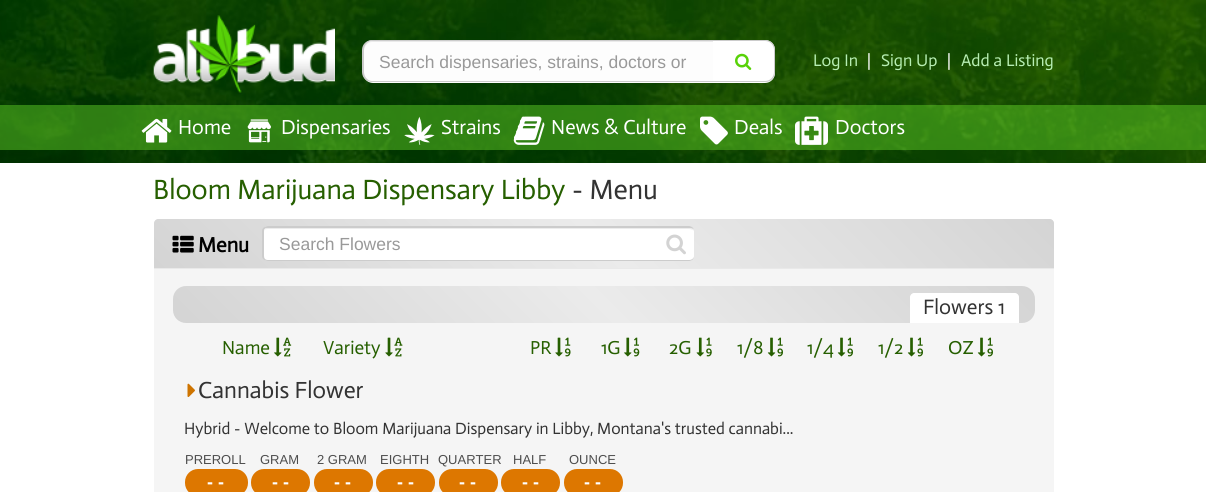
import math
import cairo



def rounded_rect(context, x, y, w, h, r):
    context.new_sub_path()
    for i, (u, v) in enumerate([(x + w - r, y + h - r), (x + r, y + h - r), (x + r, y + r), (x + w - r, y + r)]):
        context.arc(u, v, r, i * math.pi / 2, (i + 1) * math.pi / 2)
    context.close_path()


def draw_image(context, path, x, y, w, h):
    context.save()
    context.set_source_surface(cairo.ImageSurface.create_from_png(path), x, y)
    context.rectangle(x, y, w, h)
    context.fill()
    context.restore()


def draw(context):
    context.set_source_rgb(1, 1, 1)
    context.paint()
    draw_image(context, "images/1.png", 0, 0, 1206, 163)
    draw_image(context, "images/2.png", 153, 15, 182, 78)
    context.set_source_rgb(253 / 255, 253 / 255, 253 / 255)
    context.new_path()
    context.move_to(373, 40)
    context.line_to(714, 40)
    context.line_to(714, 83)
    context.line_to(373, 83)
    context.curve_to(367.5, 83, 363, 78.5, 363, 73)
    context.line_to(363, 50)
    context.curve_to(363, 44.5, 367.5, 40, 373, 40)
    context.close_path()
    context.fill()
    context.set_source_rgb(234 / 255, 234 / 255, 234 / 255)
    context.new_path()
    context.move_to(372, 42)
    context.line_to(714, 42)
    context.line_to(714, 41)
    context.line_to(373, 41)
    context.curve_to(367, 41, 364, 46, 364, 51)
    context.curve_to(364, 46, 368, 42, 372, 42)
    context.close_path()
    context.fill()
    context.set_source_rgb(204 / 255, 204 / 255, 204 / 255)
    context.set_fill_rule(cairo.FillRule.EVEN_ODD)
    context.new_path()
    context.move_to(372, 40)
    context.line_to(714, 40)
    context.line_to(714, 82)
    context.line_to(372, 82)
    context.curve_to(367, 82, 362, 78, 362, 72)
    context.line_to(362, 50)
    context.curve_to(362, 44, 367, 40, 372, 40)
    context.close_path()
    context.move_to(372, 41)
    context.line_to(714, 41)
    context.line_to(714, 81)
    context.line_to(372, 81)
    context.curve_to(368, 81, 364, 77, 364, 72)
    context.line_to(364, 50)
    context.curve_to(364, 45, 368, 41, 372, 41)
    context.close_path()
    context.fill()
    context.set_source_rgb(1, 1, 1)
    context.new_path()
    context.move_to(713, 40)
    context.line_to(765, 40)
    context.curve_to(770.5, 40, 775, 44.5, 775, 50)
    context.line_to(775, 73)
    context.curve_to(775, 78.5, 770.5, 83, 765, 83)
    context.line_to(713, 83)
    context.close_path()
    context.fill()
    context.set_source_rgb(204 / 255, 204 / 255, 204 / 255)
    context.new_path()
    context.move_to(712, 40)
    context.line_to(765, 40)
    context.curve_to(771, 40, 775, 44, 775, 50)
    context.line_to(775, 72)
    context.curve_to(775, 78, 771, 82, 765, 82)
    context.line_to(712, 82)
    context.close_path()
    context.move_to(712, 41)
    context.line_to(765, 41)
    context.curve_to(770, 41, 774, 45, 774, 50)
    context.line_to(774, 72)
    context.curve_to(774, 77, 770, 81, 765, 81)
    context.line_to(712, 81)
    context.close_path()
    context.fill()
    draw_image(context, "images/3.png", 735, 53, 17, 17)
    context.set_source_rgba(94 / 255, 205 / 255, 39 / 255, 0.5)
    context.rectangle(0, 105, 1206, 45)
    context.fill()
    draw_image(context, "images/4.png", 141, 118, 31, 25)
    draw_image(context, "images/5.png", 247, 119, 24, 24)
    draw_image(context, "images/6.png", 404, 116, 31, 29)
    draw_image(context, "images/7.png", 513, 116, 32, 29)
    draw_image(context, "images/8.png", 700, 116, 28, 29)
    draw_image(context, "images/9.png", 795, 116, 33, 29)
    gradient = cairo.LinearGradient(367, 480, 841, 5.9)
    gradient.add_color_stop_rgba(0, 212 / 255, 212 / 255, 212 / 255, 1)
    gradient.add_color_stop_rgba(0.5, 235 / 255, 235 / 255, 235 / 255, 1)
    gradient.add_color_stop_rgba(1, 212 / 255, 212 / 255, 212 / 255, 1)
    context.set_source(gradient)
    context.new_path()
    context.move_to(158, 219)
    context.line_to(1050, 219)
    context.curve_to(1052, 219, 1054, 221, 1054, 223)
    context.line_to(1054, 268)
    context.line_to(154, 268)
    context.line_to(154, 223)
    context.curve_to(154, 221, 156, 219, 158, 219)
    context.close_path()
    context.fill()
    draw_image(context, "images/10.png", 172, 235, 22, 18)
    context.set_source_rgb(1, 1, 1)
    rounded_rect(context, 263, 226, 431, 35, 5)
    context.fill()
    context.set_source_rgb(236 / 255, 236 / 255, 236 / 255)
    context.set_fill_rule(cairo.FillRule.WINDING)
    context.new_path()
    context.move_to(268, 229)
    context.line_to(689, 229)
    context.curve_to(691, 229, 693, 230, 694, 231)
    context.curve_to(693, 229, 691, 228, 689, 228)
    context.line_to(268, 228)
    context.curve_to(262, 228, 264, 237, 264, 240)
    context.line_to(264, 258)
    context.line_to(264, 232)
    context.curve_to(264, 230, 265, 229, 268, 229)
    context.close_path()
    context.fill()
    context.set_source_rgb(204 / 255, 204 / 255, 204 / 255)
    context.set_fill_rule(cairo.FillRule.EVEN_ODD)
    context.new_path()
    context.move_to(268, 226)
    context.line_to(689, 226)
    context.curve_to(692, 226, 694, 228, 694, 231)
    context.line_to(694, 256)
    context.curve_to(694, 259, 692, 261, 689, 261)
    context.line_to(268, 261)
    context.curve_to(265, 261, 262, 259, 262, 256)
    context.line_to(262, 231)
    context.curve_to(262, 228, 265, 226, 268, 226)
    context.close_path()
    context.move_to(268, 228)
    context.line_to(689, 228)
    context.curve_to(692, 228, 694, 229, 694, 231)
    context.line_to(694, 256)
    context.curve_to(694, 258, 692, 260, 689, 260)
    context.line_to(268, 260)
    context.curve_to(265, 260, 264, 258, 264, 256)
    context.line_to(264, 231)
    context.curve_to(264, 229, 265, 228, 268, 228)
    context.close_path()
    context.fill()
    draw_image(context, "images/11.png", 666, 234, 20, 21)
    context.set_source_rgb(245 / 255, 245 / 255, 245 / 255)
    context.rectangle(154, 269, 900, 223)
    context.fill()
    context.set_source_rgb(233 / 255, 233 / 255, 233 / 255)
    context.rectangle(154, 268, 900, 1)
    context.fill()
    gradient = cairo.LinearGradient(379, 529, 828, 80)
    gradient.add_color_stop_rgba(0, 212 / 255, 212 / 255, 212 / 255, 1)
    gradient.add_color_stop_rgba(0.5, 235 / 255, 235 / 255, 235 / 255, 1)
    gradient.add_color_stop_rgba(1, 212 / 255, 212 / 255, 212 / 255, 1)
    context.set_source(gradient)
    rounded_rect(context, 173, 286, 862, 37, 13)
    context.fill()
    context.set_source_rgb(1, 1, 1)
    context.new_path()
    context.move_to(914, 293)
    context.line_to(1015, 293)
    context.curve_to(1017, 293, 1019, 295, 1019, 297)
    context.line_to(1019, 323)
    context.line_to(910, 323)
    context.line_to(910, 297)
    context.curve_to(910, 295, 912, 293, 914, 293)
    context.close_path()
    context.fill()
    draw_image(context, "images/12.png", 274, 337, 18, 20)
    draw_image(context, "images/13.png", 385, 337, 18, 20)
    draw_image(context, "images/14.png", 555, 337, 16, 20)
    draw_image(context, "images/15.png", 624, 337, 16, 20)
    draw_image(context, "images/16.png", 696, 337, 16, 20)
    draw_image(context, "images/17.png", 767, 337, 16, 20)
    draw_image(context, "images/17.png", 837, 337, 16, 20)
    draw_image(context, "images/17.png", 907, 337, 16, 20)
    draw_image(context, "images/17.png", 977, 337, 16, 20)
    draw_image(context, "images/18.png", 187, 383, 8, 14)
    context.set_source_rgb(221 / 255, 119 / 255, 0)
    rounded_rect(context, 185, 469, 63, 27, 13)
    context.fill()
    rounded_rect(context, 251, 469, 59, 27, 13)
    context.fill()
    rounded_rect(context, 314, 469, 59, 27, 13)
    context.fill()
    rounded_rect(context, 376, 469, 59, 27, 13)
    context.fill()
    rounded_rect(context, 439, 469, 59, 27, 13)
    context.fill()
    rounded_rect(context, 501, 469, 59, 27, 13)
    context.fill()
    rounded_rect(context, 564, 469, 59, 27, 13)
    context.fill()
    context.save()
    context.set_fill_rule(cairo.FillRule.WINDING)
    context.rectangle(379, 51, 315, 20)
    context.clip()
    context.select_font_face("Liberation Sans")
    context.set_font_size(17.5)
    context.set_source_rgb(153 / 255, 153 / 255, 153 / 255)
    context.move_to(379, 68)
    context.show_text("Search dispensaries, strains, doctors or")
    context.restore()
    context.select_font_face("Actor")
    context.set_font_size(17)
    context.set_source_rgb(183 / 255, 238 / 255, 179 / 255)
    context.move_to(813, 66)
    context.show_text("Log In")
    context.set_source_rgb(1, 1, 1)
    context.move_to(867, 66)
    context.show_text("|")
    context.set_source_rgb(183 / 255, 238 / 255, 179 / 255)
    context.move_to(881, 66)
    context.show_text("Sign Up")
    context.set_source_rgb(1, 1, 1)
    context.move_to(947, 66)
    context.show_text("|")
    context.set_source_rgb(183 / 255, 238 / 255, 179 / 255)
    context.move_to(961, 66)
    context.show_text("Add a Listing")
    context.set_font_size(20.5)
    context.set_source_rgb(1, 1, 1)
    context.move_to(178, 134)
    context.show_text("Home")
    context.move_to(281, 134)
    context.show_text("Dispensaries")
    context.move_to(441, 134)
    context.show_text("Strains")
    context.move_to(551, 134)
    context.show_text("News & Culture")
    context.move_to(734, 134)
    context.show_text("Deals")
    context.move_to(835, 134)
    context.show_text("Doctors")
    context.set_font_size(28.1)
    context.set_source_rgb(38 / 255, 95 / 255, 0)
    context.move_to(153, 199)
    context.show_text("Bloom Marijuana Dispensary Libby")
    context.set_source_rgb(51 / 255, 51 / 255, 51 / 255)
    context.move_to(572, 199)
    context.show_text("- Menu")
    context.select_font_face("Actor", cairo.FontSlant.NORMAL, cairo.FontWeight.BOLD)
    context.set_font_size(21)
    context.set_source_rgb(0, 0, 0)
    context.move_to(198, 252)
    context.show_text("Menu")
    context.select_font_face("Liberation Sans")
    context.set_font_size(17.5)
    context.set_source_rgb(153 / 255, 153 / 255, 153 / 255)
    context.move_to(279, 250)
    context.show_text("Search Flowers")
    context.select_font_face("Actor")
    context.set_font_size(21)
    context.set_source_rgb(51 / 255, 51 / 255, 51 / 255)
    context.move_to(923, 314)
    context.show_text("Flowers 1")
    context.set_font_size(19)
    context.set_source_rgb(38 / 255, 95 / 255, 0)
    context.move_to(222, 354)
    context.show_text("Name")
    context.move_to(323, 354)
    context.show_text("Variety")
    context.move_to(530, 354)
    context.show_text("PR")
    context.move_to(601, 354)
    context.show_text("1G")
    context.move_to(669, 354)
    context.show_text("2G")
    context.move_to(737, 354)
    context.show_text("1/8")
    context.move_to(807, 354)
    context.show_text("1/4")
    context.move_to(878, 354)
    context.show_text("1/2")
    context.move_to(948, 354)
    context.show_text("OZ")
    context.set_font_size(23.5)
    context.set_source_rgb(51 / 255, 51 / 255, 51 / 255)
    context.move_to(198, 398)
    context.show_text("Cannabis Flower")
    context.set_font_size(16.4)
    context.move_to(184, 434)
    context.show_text("Hybrid - Welcome to Bloom Marijuana Dispensary in Libby, Montana's trusted cannabi...")
    context.select_font_face("Liberation Sans")
    context.set_font_size(13)
    context.set_source_rgb(77 / 255, 77 / 255, 77 / 255)
    context.move_to(185, 464)
    context.show_text("PREROLL")
    context.select_font_face("Liberation Sans", cairo.FontSlant.NORMAL, cairo.FontWeight.BOLD)
    context.set_font_size(18)
    context.set_source_rgb(1, 1, 1)
    context.move_to(207, 488)
    context.show_text("- -")
    context.select_font_face("Liberation Sans")
    context.set_font_size(13)
    context.set_source_rgb(77 / 255, 77 / 255, 77 / 255)
    context.move_to(260, 464)
    context.show_text("GRAM")
    context.select_font_face("Liberation Sans", cairo.FontSlant.NORMAL, cairo.FontWeight.BOLD)
    context.set_font_size(18)
    context.set_source_rgb(1, 1, 1)
    context.move_to(272, 488)
    context.show_text("- -")
    context.select_font_face("Liberation Sans")
    context.set_font_size(13)
    context.set_source_rgb(77 / 255, 77 / 255, 77 / 255)
    context.move_to(317, 464)
    context.show_text("2 GRAM")
    context.select_font_face("Liberation Sans", cairo.FontSlant.NORMAL, cairo.FontWeight.BOLD)
    context.set_font_size(18)
    context.set_source_rgb(1, 1, 1)
    context.move_to(334, 488)
    context.show_text("- -")
    context.select_font_face("Liberation Sans")
    context.set_font_size(13)
    context.set_source_rgb(77 / 255, 77 / 255, 77 / 255)
    context.move_to(380, 464)
    context.show_text("EIGHTH")
    context.select_font_face("Liberation Sans", cairo.FontSlant.NORMAL, cairo.FontWeight.BOLD)
    context.set_font_size(18)
    context.set_source_rgb(1, 1, 1)
    context.move_to(397, 488)
    context.show_text("- -")
    context.select_font_face("Liberation Sans")
    context.set_font_size(13)
    context.set_source_rgb(77 / 255, 77 / 255, 77 / 255)
    context.move_to(438, 464)
    context.show_text("QUARTER")
    context.select_font_face("Liberation Sans", cairo.FontSlant.NORMAL, cairo.FontWeight.BOLD)
    context.set_font_size(18)
    context.set_source_rgb(1, 1, 1)
    context.move_to(459, 488)
    context.show_text("- -")
    context.select_font_face("Liberation Sans")
    context.set_font_size(13)
    context.set_source_rgb(77 / 255, 77 / 255, 77 / 255)
    context.move_to(513, 464)
    context.show_text("HALF")
    context.select_font_face("Liberation Sans", cairo.FontSlant.NORMAL, cairo.FontWeight.BOLD)
    context.set_font_size(18)
    context.set_source_rgb(1, 1, 1)
    context.move_to(522, 488)
    context.show_text("- -")
    context.select_font_face("Liberation Sans")
    context.set_font_size(13)
    context.set_source_rgb(77 / 255, 77 / 255, 77 / 255)
    context.move_to(569, 464)
    context.show_text("OUNCE")
    context.select_font_face("Liberation Sans", cairo.FontSlant.NORMAL, cairo.FontWeight.BOLD)
    context.set_font_size(18)
    context.set_source_rgb(1, 1, 1)
    context.move_to(584, 488)
    context.show_text("- -")


surface = cairo.ImageSurface(cairo.Format.RGB24, 1206, 492)
context = cairo.Context(surface)
options = cairo.FontOptions()
options.set_hint_metrics(cairo.HintMetrics.OFF)
options.set_hint_style(cairo.HintStyle.NONE)
context.set_font_options(options)
context.set_miter_limit(4)
draw(context)
surface.write_to_png("out.png")
